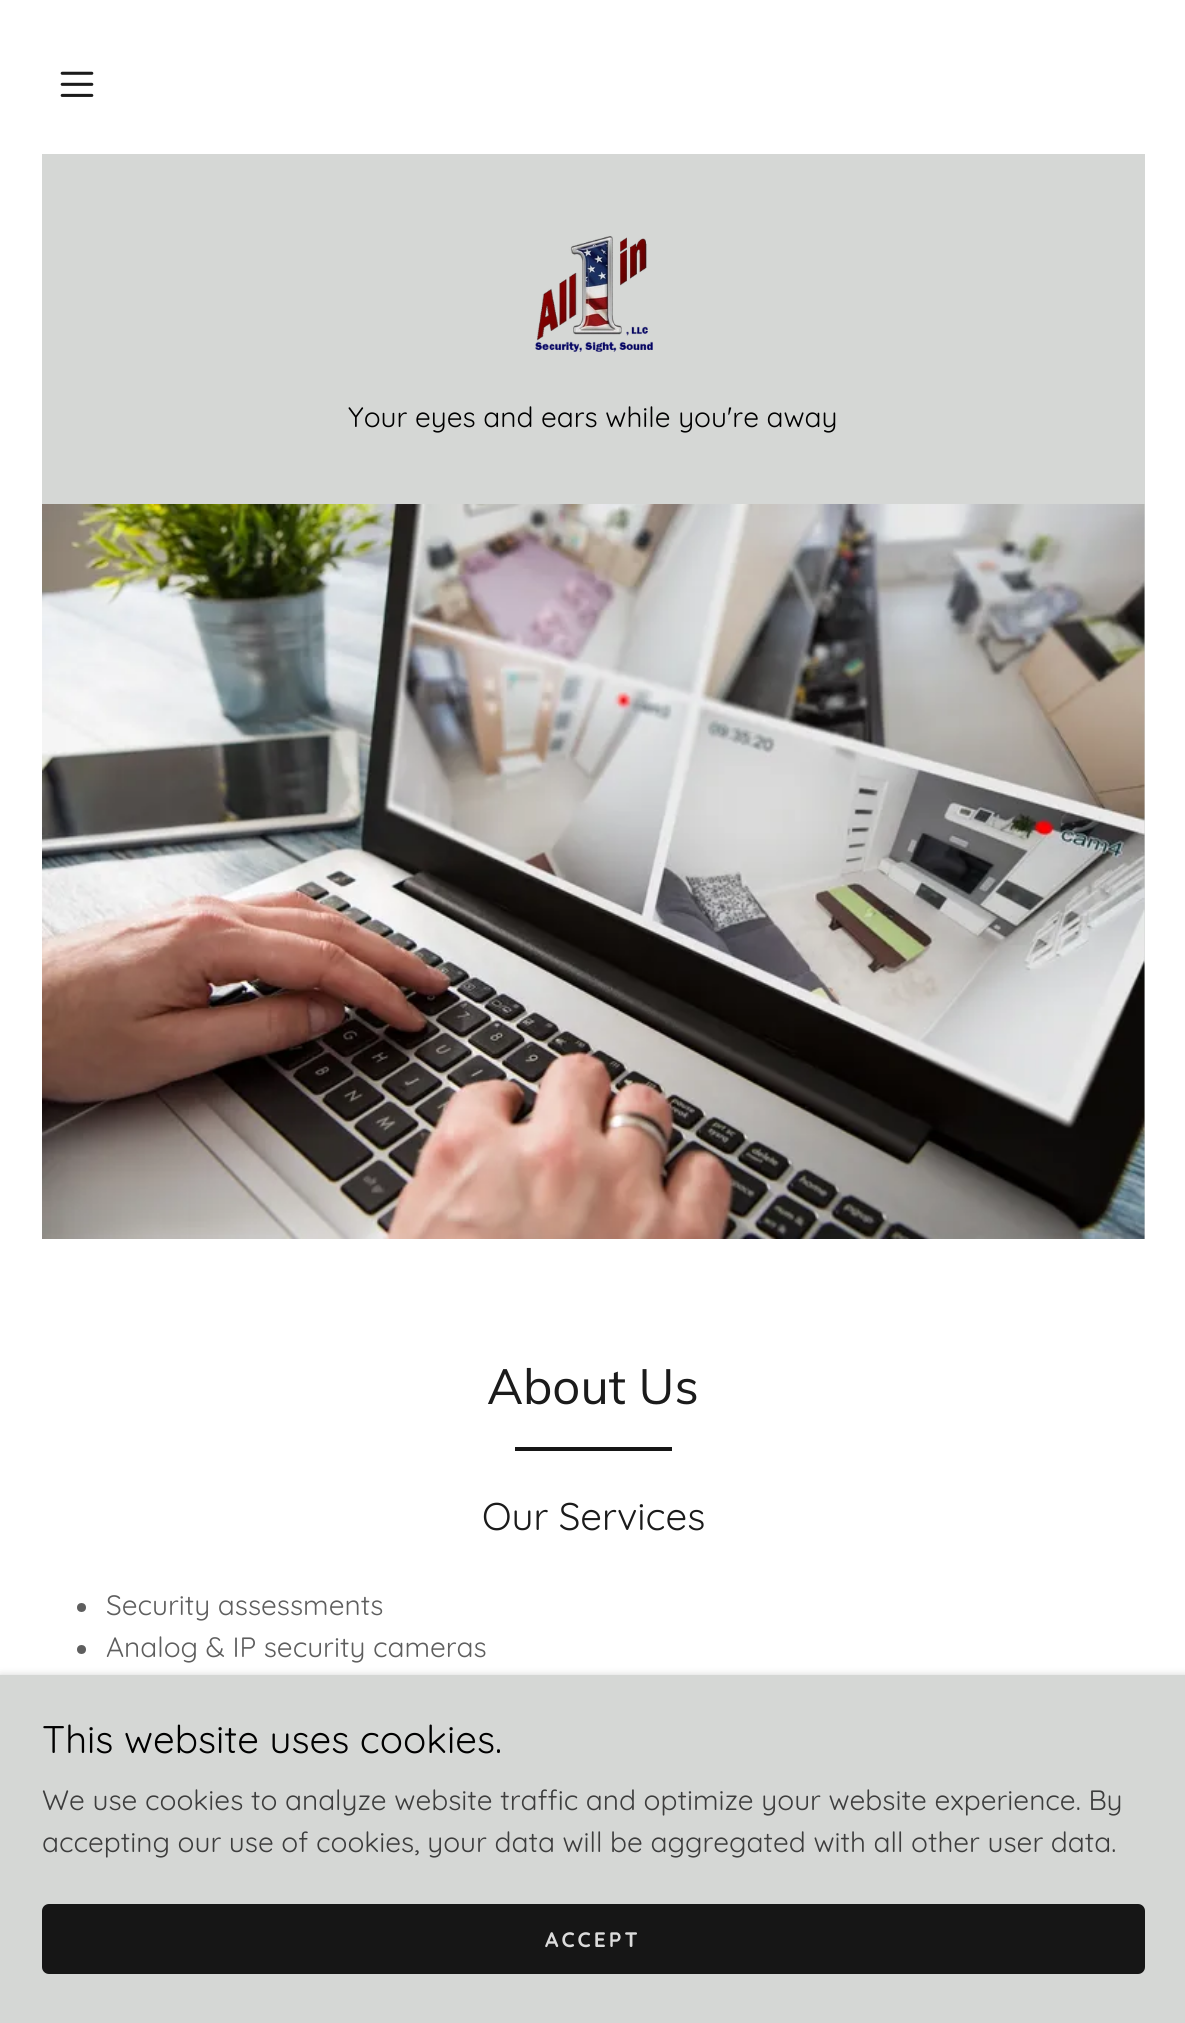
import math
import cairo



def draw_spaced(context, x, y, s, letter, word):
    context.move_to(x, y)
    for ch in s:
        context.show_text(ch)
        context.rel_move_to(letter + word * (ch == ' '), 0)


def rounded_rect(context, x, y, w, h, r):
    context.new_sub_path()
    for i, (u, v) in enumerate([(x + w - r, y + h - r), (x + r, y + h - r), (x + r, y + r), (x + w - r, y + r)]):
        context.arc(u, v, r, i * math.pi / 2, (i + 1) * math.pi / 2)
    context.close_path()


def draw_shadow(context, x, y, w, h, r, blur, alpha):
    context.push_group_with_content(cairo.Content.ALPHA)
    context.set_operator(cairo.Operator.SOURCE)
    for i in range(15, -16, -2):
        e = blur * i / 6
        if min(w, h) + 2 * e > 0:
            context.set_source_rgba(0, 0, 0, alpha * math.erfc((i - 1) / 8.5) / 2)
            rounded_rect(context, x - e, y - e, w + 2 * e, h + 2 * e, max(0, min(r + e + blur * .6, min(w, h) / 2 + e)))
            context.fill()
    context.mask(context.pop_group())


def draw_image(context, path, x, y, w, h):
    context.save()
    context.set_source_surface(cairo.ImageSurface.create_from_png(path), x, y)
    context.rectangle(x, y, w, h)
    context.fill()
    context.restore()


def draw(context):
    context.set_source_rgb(1, 1, 1)
    context.paint()
    draw_image(context, "images/1.png", 60, 71, 34, 26)
    context.set_source_rgb(213 / 255, 215 / 255, 213 / 255)
    context.rectangle(42, 154, 1103, 1085)
    context.fill()
    draw_image(context, "images/2.png", 535, 236, 118, 116)
    draw_image(context, "images/3.png", 42, 504, 1103, 735)
    context.set_source_rgb(22 / 255, 22 / 255, 22 / 255)
    context.rectangle(515, 1447, 157, 4)
    context.fill()
    context.set_source_rgb(94 / 255, 94 / 255, 94 / 255)
    context.arc(81.5, 1607.5, 4.5, 0, 2 * math.pi)
    context.fill()
    context.arc(81.5, 1649.5, 4.5, 0, 2 * math.pi)
    context.fill()
    context.set_source_rgb(0, 0, 0)
    draw_shadow(context, 0, 1678, 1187, 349, 0, 5, 0.3)
    context.set_source_rgb(213 / 255, 215 / 255, 213 / 255)
    context.rectangle(0, 1675, 1185, 348)
    context.fill()
    context.set_source_rgb(22 / 255, 22 / 255, 22 / 255)
    rounded_rect(context, 42, 1904, 1103, 70, 7)
    context.fill()
    context.select_font_face("Quicksand")
    context.set_font_size(28)
    context.set_source_rgb(0, 0, 0)
    context.move_to(348, 427)
    context.show_text("Your eyes and ears while you're away")
    context.select_font_face("Muli")
    context.set_font_size(49)
    context.set_source_rgb(27 / 255, 27 / 255, 27 / 255)
    context.move_to(487, 1404)
    context.show_text("About Us")
    context.select_font_face("Quicksand")
    context.set_font_size(38.5)
    context.move_to(482, 1530)
    context.show_text("Our Services")
    context.set_font_size(28)
    context.set_source_rgb(94 / 255, 94 / 255, 94 / 255)
    context.move_to(106, 1615)
    context.show_text("Security assessments")
    context.move_to(106, 1657)
    context.show_text("Analog & IP security cameras")
    context.set_font_size(38.5)
    context.set_source_rgb(0, 0, 0)
    context.move_to(42, 1753)
    context.show_text("This website uses cookies.")
    context.set_font_size(28)
    context.set_source_rgb(61 / 255, 61 / 255, 61 / 255)
    context.move_to(42, 1810)
    context.show_text("We use cookies to analyze website traffic and optimize your website experience. By")
    context.move_to(42, 1852)
    context.show_text("accepting our use of cookies, your data will be aggregated with all other user data.")
    context.select_font_face("Quicksand", cairo.FontSlant.NORMAL, cairo.FontWeight.BOLD)
    context.set_font_size(21)
    context.set_source_rgb(219 / 255, 219 / 255, 219 / 255)
    draw_spaced(context, 545, 1947, "ACCEPT", 3, 0)


surface = cairo.ImageSurface(cairo.Format.RGB24, 1185, 2023)
context = cairo.Context(surface)
options = cairo.FontOptions()
options.set_hint_metrics(cairo.HintMetrics.OFF)
options.set_hint_style(cairo.HintStyle.NONE)
context.set_font_options(options)
context.set_miter_limit(4)
draw(context)
surface.write_to_png("out.png")
